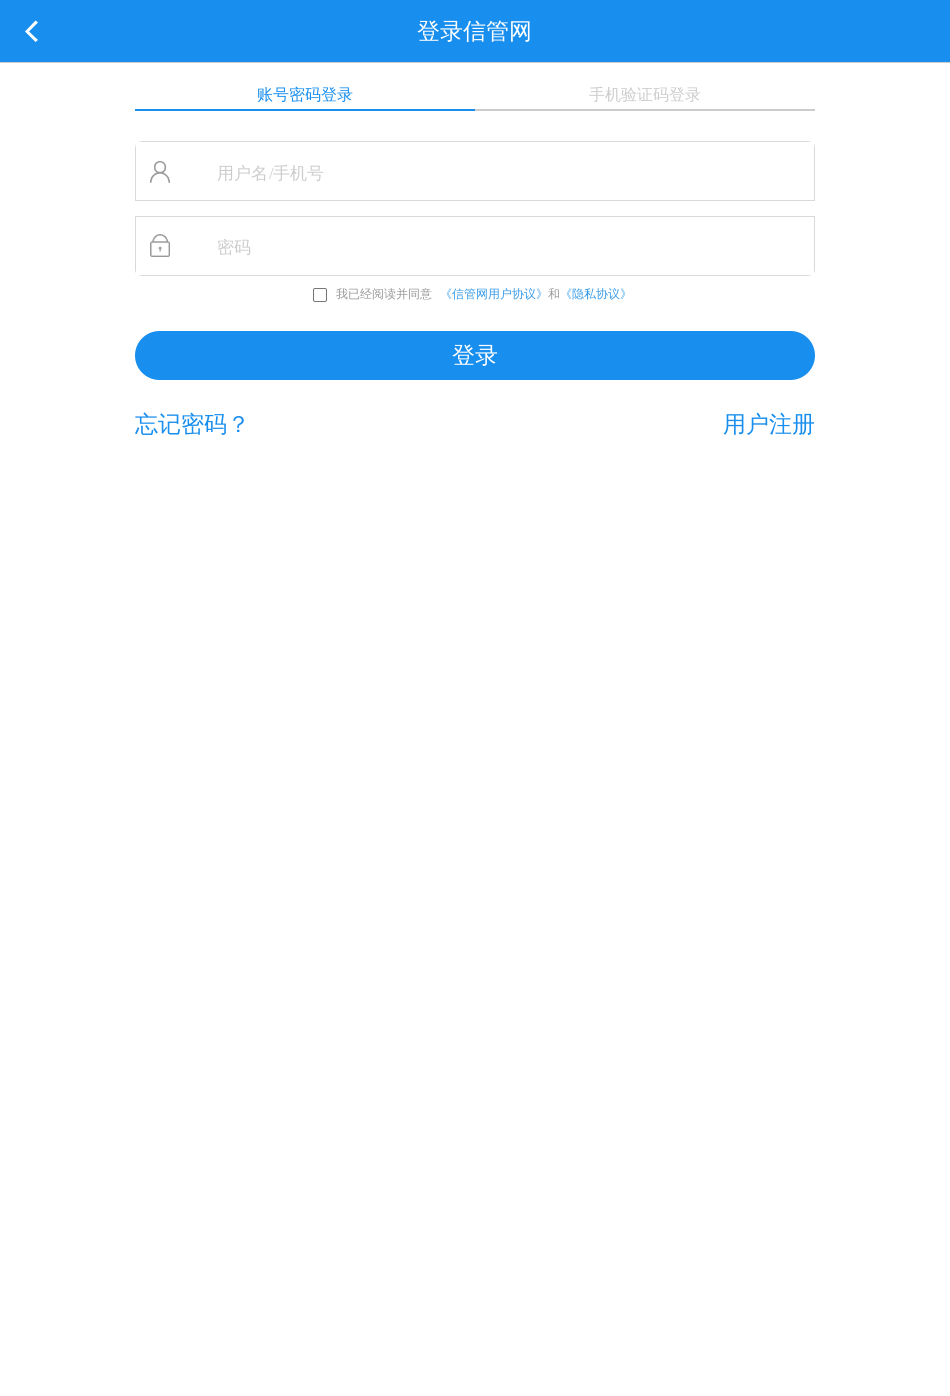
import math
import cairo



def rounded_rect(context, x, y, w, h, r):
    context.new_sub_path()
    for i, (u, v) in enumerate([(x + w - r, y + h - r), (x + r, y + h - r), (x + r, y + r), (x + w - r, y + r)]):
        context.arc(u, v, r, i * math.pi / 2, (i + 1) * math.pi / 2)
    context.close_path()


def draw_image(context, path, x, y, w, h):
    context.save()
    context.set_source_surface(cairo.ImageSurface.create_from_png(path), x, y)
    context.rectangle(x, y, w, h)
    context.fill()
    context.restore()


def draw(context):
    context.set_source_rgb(1, 1, 1)
    context.paint()
    context.set_source_rgb(24 / 255, 142 / 255, 238 / 255)
    context.rectangle(0, 0, 950, 62)
    context.fill()
    context.set_source_rgb(204 / 255, 204 / 255, 204 / 255)
    context.rectangle(0, 62, 950, 1)
    context.fill()
    context.set_source_rgb(1, 1, 1)
    context.new_path()
    context.move_to(38, 22.5)
    context.line_to(35.5, 20.5)
    context.line_to(25, 31.5)
    context.line_to(35.5, 42)
    context.line_to(38, 40)
    context.line_to(29, 31.5)
    context.close_path()
    context.fill()
    context.set_source_rgb(24 / 255, 142 / 255, 238 / 255)
    context.rectangle(135, 109, 340, 2)
    context.fill()
    context.set_source_rgb(204 / 255, 204 / 255, 204 / 255)
    context.rectangle(475, 109, 340, 2)
    context.fill()
    context.set_source_rgb(217 / 255, 217 / 255, 217 / 255)
    context.set_fill_rule(cairo.FillRule.EVEN_ODD)
    context.new_path()
    context.move_to(135, 148)
    context.line_to(135, 201)
    context.line_to(815, 201)
    context.line_to(815, 148)
    context.curve_to(815, 147, 815, 145, 814, 144)
    context.line_to(814, 200)
    context.line_to(136, 200)
    context.line_to(136, 144)
    context.close_path()
    context.move_to(142, 141)
    context.line_to(138, 142)
    context.line_to(812, 142)
    context.line_to(808, 141)
    context.close_path()
    context.fill()
    draw_image(context, "images/1.png", 150, 161, 20, 22)
    context.new_path()
    context.move_to(136, 217)
    context.line_to(814, 217)
    context.line_to(814, 273)
    context.curve_to(815, 272, 815, 270, 815, 269)
    context.line_to(815, 216)
    context.line_to(135, 216)
    context.line_to(135, 269)
    context.curve_to(135, 270, 135, 272, 136, 273)
    context.close_path()
    context.move_to(808, 276)
    context.line_to(812, 275)
    context.line_to(138, 275)
    context.line_to(142, 276)
    context.close_path()
    context.fill()
    draw_image(context, "images/2.png", 150, 234, 20, 23)
    rounded_rect(context, 313.5, 288.5, 13, 13, 1.5)
    context.set_source_rgb(118 / 255, 118 / 255, 118 / 255)
    context.set_line_width(1)
    context.stroke()
    context.set_source_rgb(24 / 255, 142 / 255, 238 / 255)
    rounded_rect(context, 135, 331, 680, 49, 24.5)
    context.fill()
    context.select_font_face("WenQuanYi Zen Hei Medium")
    context.set_font_size(23)
    context.set_source_rgb(1, 1, 1)
    context.move_to(417, 39)
    context.show_text("登录信管网")
    context.set_font_size(16)
    context.set_source_rgb(24 / 255, 142 / 255, 238 / 255)
    context.move_to(257, 100)
    context.show_text("账号密码登录")
    context.set_source_rgb(204 / 255, 204 / 255, 204 / 255)
    context.move_to(589, 100)
    context.show_text("手机验证码登录")
    context.set_font_size(17)
    context.move_to(217, 179)
    context.show_text("用户名")
    context.select_font_face("Liberation Serif")
    context.move_to(269, 179)
    context.show_text("/")
    context.select_font_face("WenQuanYi Zen Hei Medium")
    context.move_to(273, 179)
    context.show_text("手机号")
    context.move_to(217, 253)
    context.show_text("密码")
    context.set_font_size(12)
    context.set_source_rgb(153 / 255, 153 / 255, 153 / 255)
    context.move_to(336, 298)
    context.show_text("我已经阅读并同意")
    context.set_source_rgb(55 / 255, 155 / 255, 231 / 255)
    context.move_to(440, 298)
    context.show_text("《信管网用户协议》")
    context.set_source_rgb(153 / 255, 153 / 255, 153 / 255)
    context.move_to(548, 298)
    context.show_text("和")
    context.set_source_rgb(55 / 255, 155 / 255, 231 / 255)
    context.move_to(560, 298)
    context.show_text("《隐私协议》")
    context.set_font_size(23)
    context.set_source_rgb(1, 1, 1)
    context.move_to(452, 363)
    context.show_text("登录")
    context.set_source_rgb(24 / 255, 142 / 255, 238 / 255)
    context.move_to(135, 432)
    context.show_text("忘记密码？")
    context.move_to(723, 432)
    context.show_text("用户注册")


surface = cairo.ImageSurface(cairo.Format.RGB24, 950, 1396)
context = cairo.Context(surface)
options = cairo.FontOptions()
options.set_hint_metrics(cairo.HintMetrics.OFF)
options.set_hint_style(cairo.HintStyle.NONE)
context.set_font_options(options)
context.set_miter_limit(4)
draw(context)
surface.write_to_png("out.png")
